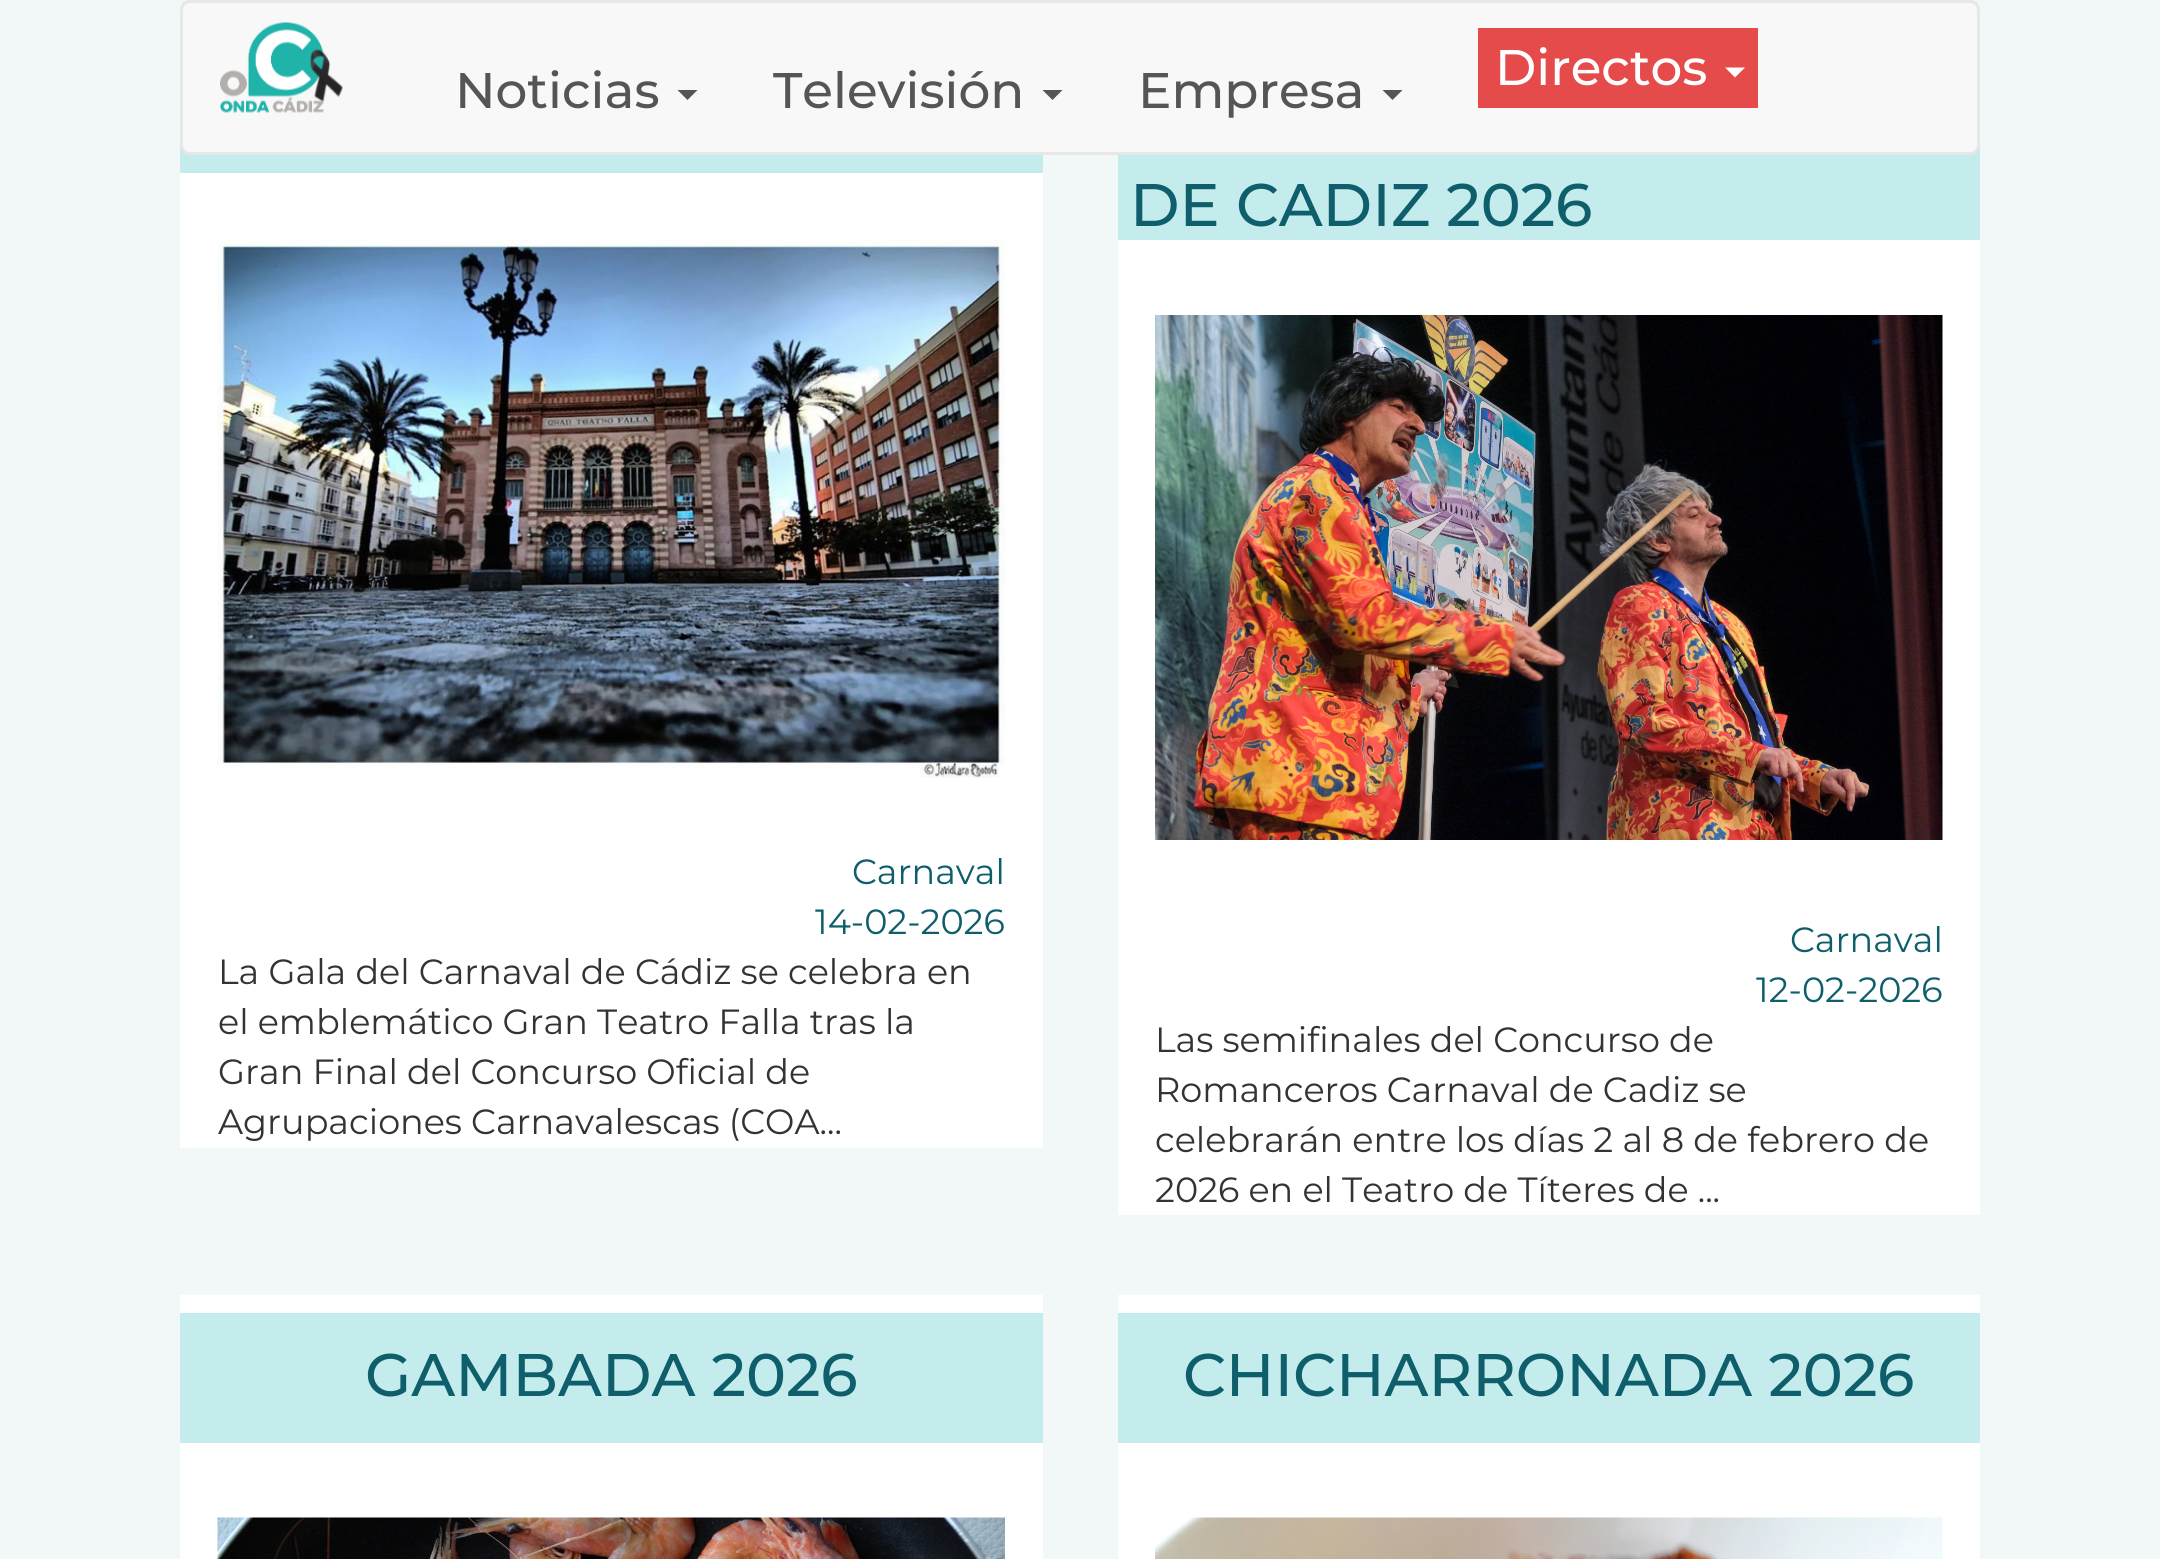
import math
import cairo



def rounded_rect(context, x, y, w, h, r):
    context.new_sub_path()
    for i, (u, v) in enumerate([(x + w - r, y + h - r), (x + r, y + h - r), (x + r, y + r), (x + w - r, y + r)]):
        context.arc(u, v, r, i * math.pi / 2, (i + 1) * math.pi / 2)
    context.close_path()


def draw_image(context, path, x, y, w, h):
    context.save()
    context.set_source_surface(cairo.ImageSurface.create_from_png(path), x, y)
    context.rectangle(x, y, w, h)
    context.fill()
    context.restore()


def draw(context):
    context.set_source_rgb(242 / 255, 247 / 255, 247 / 255)
    context.paint()
    context.set_source_rgb(196 / 255, 236 / 255, 236 / 255)
    context.rectangle(180, 145, 863, 28)
    context.fill()
    context.rectangle(1118, 145, 862, 95)
    context.fill()
    context.set_source_rgb(248 / 255, 248 / 255, 248 / 255)
    rounded_rect(context, 181.5, 1.5, 1797, 152, 8.5)
    context.fill_preserve()
    context.set_source_rgb(231 / 255, 231 / 255, 231 / 255)
    context.set_line_width(3)
    context.stroke()
    draw_image(context, "images/1.png", 220, 22, 123, 91)
    context.set_source_rgb(85 / 255, 85 / 255, 85 / 255)
    context.new_path()
    context.move_to(677.5, 90)
    context.line_to(697.5, 90)
    context.line_to(687.5, 100)
    context.close_path()
    context.fill()
    context.new_path()
    context.move_to(1042.5, 90)
    context.line_to(1062.5, 90)
    context.line_to(1052.5, 100)
    context.close_path()
    context.fill()
    context.new_path()
    context.move_to(1382.5, 90)
    context.line_to(1402.5, 90)
    context.line_to(1392.5, 100)
    context.close_path()
    context.fill()
    context.set_source_rgb(230 / 255, 75 / 255, 75 / 255)
    context.rectangle(1478, 28, 280, 80)
    context.fill()
    context.set_source_rgb(1, 1, 1)
    context.new_path()
    context.move_to(1725, 67.5)
    context.line_to(1745, 67.5)
    context.line_to(1735, 77.5)
    context.close_path()
    context.fill()
    context.rectangle(180, 173, 863, 975)
    context.fill()
    draw_image(context, "images/2.png", 217, 240, 788, 538)
    context.rectangle(1118, 240, 862, 975)
    context.fill()
    draw_image(context, "images/3.png", 1155, 315, 788, 525)
    context.rectangle(180, 1295, 863, 264)
    context.fill()
    context.set_source_rgb(196 / 255, 236 / 255, 236 / 255)
    context.rectangle(180, 1313, 863, 130)
    context.fill()
    draw_image(context, "images/4.png", 217, 1517, 788, 42)
    context.set_source_rgb(1, 1, 1)
    context.rectangle(1118, 1295, 862, 264)
    context.fill()
    context.set_source_rgb(196 / 255, 236 / 255, 236 / 255)
    context.rectangle(1118, 1313, 862, 130)
    context.fill()
    draw_image(context, "images/5.png", 1155, 1517, 788, 42)
    context.select_font_face("Montserrat Medium")
    context.set_font_size(50)
    context.set_source_rgb(85 / 255, 85 / 255, 85 / 255)
    context.move_to(455, 108)
    context.show_text("Noticias")
    context.move_to(773, 108)
    context.show_text("Televisión")
    context.move_to(1138, 108)
    context.show_text("Empresa")
    context.set_source_rgb(1, 1, 1)
    context.move_to(1495, 85)
    context.show_text("Directos")
    context.select_font_face("Montserrat")
    context.set_font_size(35)
    context.set_source_rgb(14 / 255, 94 / 255, 107 / 255)
    context.move_to(852, 884)
    context.show_text("Carnaval")
    context.move_to(815, 934)
    context.show_text("14-02-2026")
    context.set_source_rgb(51 / 255, 51 / 255, 51 / 255)
    context.move_to(218, 984)
    context.show_text("La Gala del Carnaval de Cádiz se celebra en")
    context.move_to(218, 1034)
    context.show_text("el emblemático Gran Teatro Falla tras la")
    context.move_to(218, 1084)
    context.show_text("Gran Final del Concurso Oficial de")
    context.move_to(218, 1134)
    context.show_text("Agrupaciones Carnavalescas (COA...")
    context.select_font_face("Montserrat Medium")
    context.set_font_size(60)
    context.set_source_rgb(14 / 255, 94 / 255, 107 / 255)
    context.move_to(1130, 226)
    context.show_text("DE CADIZ 2026")
    context.select_font_face("Montserrat")
    context.set_font_size(35)
    context.move_to(1790, 952)
    context.show_text("Carnaval")
    context.move_to(1756, 1002)
    context.show_text("12-02-2026")
    context.set_source_rgb(51 / 255, 51 / 255, 51 / 255)
    context.move_to(1155, 1052)
    context.show_text("Las semifinales del Concurso de")
    context.move_to(1155, 1102)
    context.show_text("Romanceros Carnaval de Cadiz se")
    context.move_to(1155, 1152)
    context.show_text("celebrarán entre los días 2 al 8 de febrero de")
    context.move_to(1155, 1202)
    context.show_text("2026 en el Teatro de Títeres de ...")
    context.select_font_face("Montserrat Medium")
    context.set_font_size(60)
    context.set_source_rgb(14 / 255, 94 / 255, 107 / 255)
    context.move_to(365, 1396)
    context.show_text("GAMBADA 2026")
    context.move_to(1183, 1396)
    context.show_text("CHICHARRONADA 2026")


surface = cairo.ImageSurface(cairo.Format.RGB24, 2160, 1559)
context = cairo.Context(surface)
options = cairo.FontOptions()
options.set_hint_metrics(cairo.HintMetrics.OFF)
options.set_hint_style(cairo.HintStyle.NONE)
context.set_font_options(options)
context.set_miter_limit(4)
draw(context)
surface.write_to_png("out.png")
